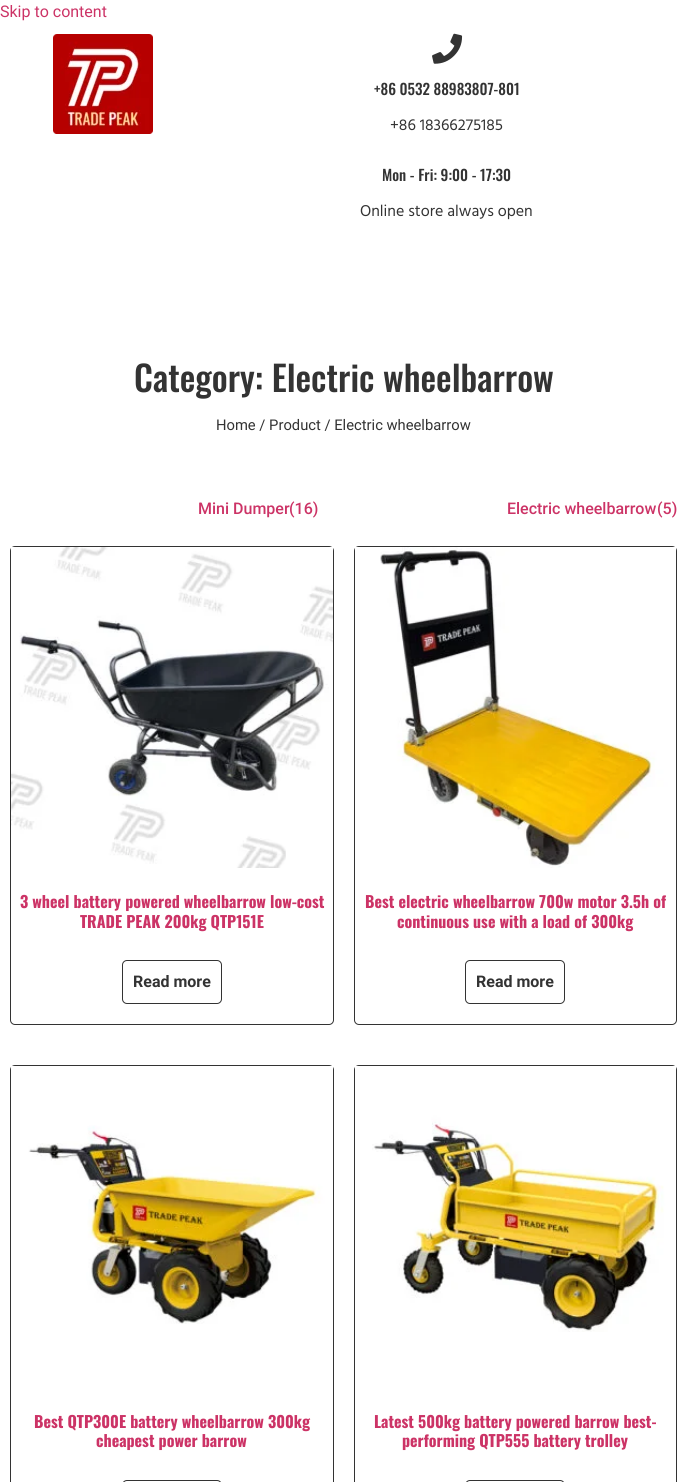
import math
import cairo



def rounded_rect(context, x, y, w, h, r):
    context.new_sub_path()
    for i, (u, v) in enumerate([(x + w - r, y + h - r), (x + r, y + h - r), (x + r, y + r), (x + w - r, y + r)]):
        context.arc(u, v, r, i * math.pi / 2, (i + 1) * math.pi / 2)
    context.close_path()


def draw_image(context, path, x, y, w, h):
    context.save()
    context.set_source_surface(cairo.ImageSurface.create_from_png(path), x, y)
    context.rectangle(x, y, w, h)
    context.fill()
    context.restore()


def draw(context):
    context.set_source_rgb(1, 1, 1)
    context.paint()
    draw_image(context, "images/1.png", 53, 34, 100, 100)
    draw_image(context, "images/2.png", 432, 33, 31, 31)
    rounded_rect(context, 10.5, 546.5, 323, 478, 4.5)
    context.set_source_rgb(51 / 255, 51 / 255, 51 / 255)
    context.set_line_width(1)
    context.stroke()
    draw_image(context, "images/3.png", 11, 547, 322, 321)
    rounded_rect(context, 122.5, 960.5, 99, 43, 4.5)
    context.stroke()
    rounded_rect(context, 354.5, 546.5, 322, 478, 4.5)
    context.stroke()
    draw_image(context, "images/4.png", 355, 547, 321, 321)
    rounded_rect(context, 465.5, 960.5, 99, 43, 4.5)
    context.stroke()
    rounded_rect(context, 10.5, 1065.5, 323, 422, 4.5)
    context.stroke()
    draw_image(context, "images/5.png", 11, 1066, 322, 258)
    rounded_rect(context, 122.5, 1480.5, 99, 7, 4.5)
    context.stroke()
    rounded_rect(context, 354.5, 1065.5, 322, 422, 4.5)
    context.stroke()
    draw_image(context, "images/6.png", 355, 1066, 321, 266)
    rounded_rect(context, 465.5, 1480.5, 99, 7, 4.5)
    context.stroke()
    context.select_font_face("Roboto")
    context.set_font_size(16)
    context.set_source_rgb(204 / 255, 51 / 255, 102 / 255)
    context.move_to(0, 17)
    context.show_text("Skip to content")
    context.select_font_face("Oswald Medium")
    context.set_font_size(15)
    context.set_source_rgb(51 / 255, 51 / 255, 51 / 255)
    context.move_to(374, 95)
    context.show_text("+86 0532 88983807-801")
    context.select_font_face("Hind Madurai")
    context.set_font_size(16)
    context.move_to(390, 130)
    context.show_text("+86 18366275185")
    context.select_font_face("Oswald Medium")
    context.set_font_size(15)
    context.move_to(382, 181)
    context.show_text("Mon - Fri: 9:00 - 17:30")
    context.select_font_face("Hind Madurai")
    context.set_font_size(16)
    context.move_to(360, 216)
    context.show_text("Online store always open")
    context.select_font_face("Oswald Medium")
    context.set_font_size(35)
    context.move_to(134, 392)
    context.show_text("Category: Electric wheelbarrow")
    context.select_font_face("Roboto")
    context.set_font_size(14.75)
    context.move_to(216, 430)
    context.show_text("Home / Product / Electric wheelbarrow")
    context.select_font_face("Roboto Medium")
    context.set_font_size(16)
    context.set_source_rgb(204 / 255, 51 / 255, 102 / 255)
    context.move_to(198, 514)
    context.show_text("Mini Dumper")
    context.move_to(289, 514)
    context.show_text("(16)")
    context.move_to(507, 514)
    context.show_text("Electric wheelbarrow")
    context.move_to(657, 514)
    context.show_text("(5)")
    context.select_font_face("Oswald", cairo.FontSlant.NORMAL, cairo.FontWeight.BOLD)
    context.move_to(20, 908)
    context.show_text("3 wheel battery powered wheelbarrow low-cost")
    context.move_to(80, 928)
    context.show_text("TRADE PEAK 200kg QTP151E")
    context.select_font_face("Roboto", cairo.FontSlant.NORMAL, cairo.FontWeight.BOLD)
    context.set_source_rgb(51 / 255, 51 / 255, 51 / 255)
    context.move_to(133, 987)
    context.show_text("Read more")
    context.select_font_face("Oswald", cairo.FontSlant.NORMAL, cairo.FontWeight.BOLD)
    context.set_source_rgb(204 / 255, 51 / 255, 102 / 255)
    context.move_to(365, 908)
    context.show_text("Best electric wheelbarrow 700w motor 3.5h of")
    context.move_to(397, 928)
    context.show_text("continuous use with a load of 300kg")
    context.select_font_face("Roboto", cairo.FontSlant.NORMAL, cairo.FontWeight.BOLD)
    context.set_source_rgb(51 / 255, 51 / 255, 51 / 255)
    context.move_to(476, 987)
    context.show_text("Read more")
    context.select_font_face("Oswald", cairo.FontSlant.NORMAL, cairo.FontWeight.BOLD)
    context.set_source_rgb(204 / 255, 51 / 255, 102 / 255)
    context.move_to(34, 1428)
    context.show_text("Best QTP300E battery wheelbarrow 300kg")
    context.move_to(96, 1447)
    context.show_text("cheapest power barrow")
    context.move_to(374, 1428)
    context.show_text("Latest 500kg battery powered barrow best-")
    context.move_to(402, 1447)
    context.show_text("performing QTP555 battery trolley")


surface = cairo.ImageSurface(cairo.Format.RGB24, 687, 1482)
context = cairo.Context(surface)
options = cairo.FontOptions()
options.set_hint_metrics(cairo.HintMetrics.OFF)
options.set_hint_style(cairo.HintStyle.NONE)
context.set_font_options(options)
context.set_miter_limit(4)
draw(context)
surface.write_to_png("out.png")
